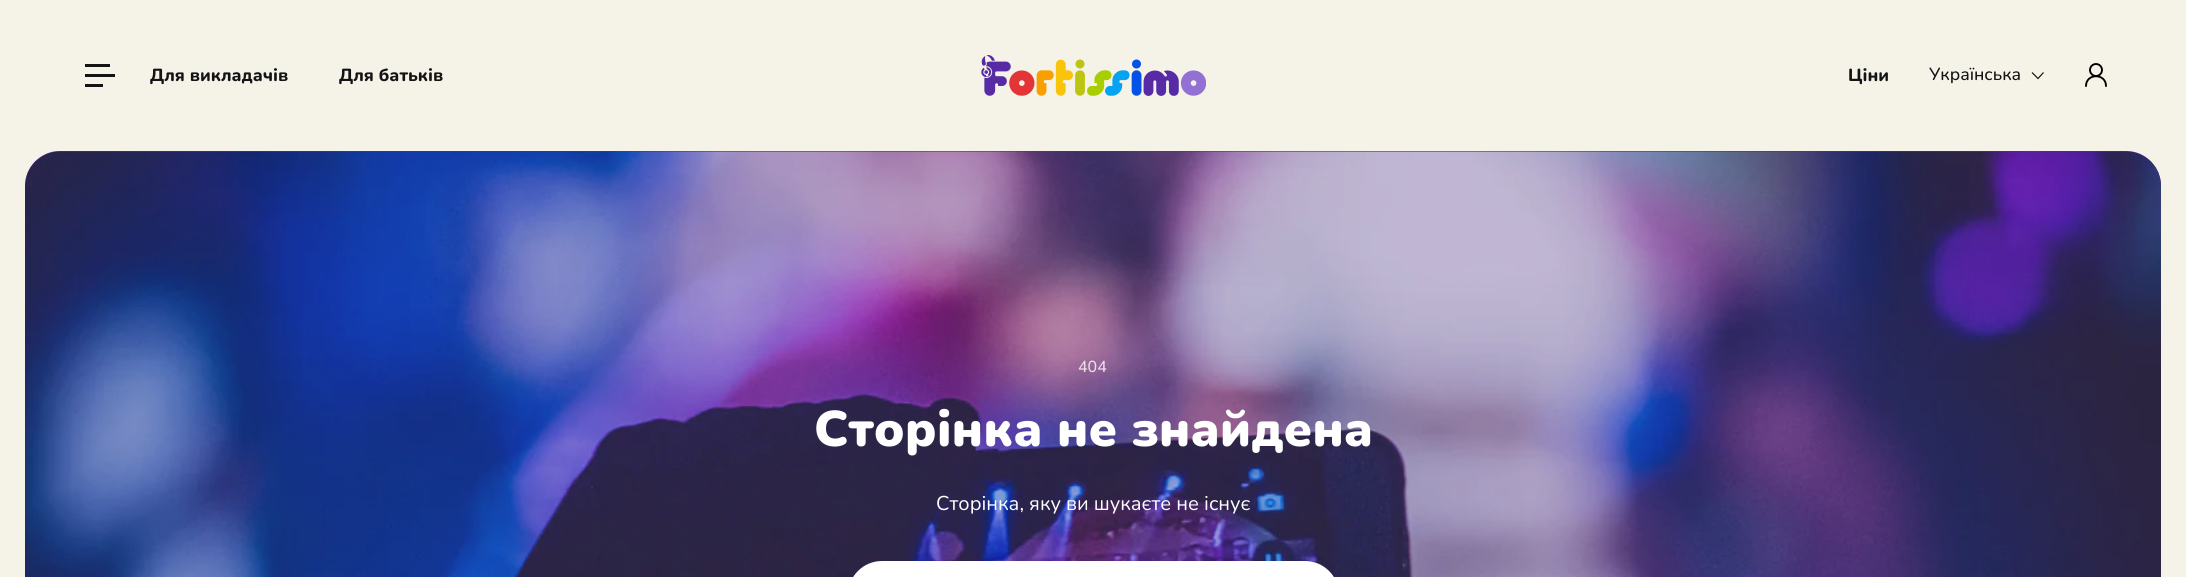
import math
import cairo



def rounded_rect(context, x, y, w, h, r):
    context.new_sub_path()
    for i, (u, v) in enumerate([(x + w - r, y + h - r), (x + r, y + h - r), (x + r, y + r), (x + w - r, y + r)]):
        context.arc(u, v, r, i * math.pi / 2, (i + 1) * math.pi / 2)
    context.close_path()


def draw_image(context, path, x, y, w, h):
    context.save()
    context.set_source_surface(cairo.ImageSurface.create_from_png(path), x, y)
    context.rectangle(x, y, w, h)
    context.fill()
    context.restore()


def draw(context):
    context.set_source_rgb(245 / 255, 243 / 255, 232 / 255)
    context.paint()
    context.set_source_rgb(20 / 255, 20 / 255, 22 / 255)
    context.rectangle(85, 64, 25, 3)
    context.fill()
    context.rectangle(85, 74, 30, 3)
    context.fill()
    context.rectangle(85, 84, 18, 3)
    context.fill()
    draw_image(context, "images/1.png", 981, 55, 225, 41)
    context.new_path()
    context.move_to(2043.5, 72.5)
    context.line_to(2038, 78.5)
    context.line_to(2032, 72.5)
    context.set_line_width(1.2)
    context.stroke()
    context.arc(2096, 70, 6, 0, 2 * math.pi)
    context.set_source_rgb(0, 0, 0)
    context.set_line_width(1.9)
    context.stroke()
    context.new_path()
    context.move_to(2106, 86)
    context.curve_to(2106, 73, 2086, 73, 2086, 86)
    context.set_line_cap(cairo.LineCap.ROUND)
    context.set_line_join(cairo.LineJoin.ROUND)
    context.stroke()
    context.set_source_rgb(86 / 255, 43 / 255, 165 / 255)
    rounded_rect(context, 25, 151, 2136, 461, 35)
    context.fill()
    draw_image(context, "images/2.png", 25, 151, 2136, 426)
    context.set_source_rgba(86 / 255, 43 / 255, 165 / 255, 0.2)
    rounded_rect(context, 25, 151, 2136, 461, 35)
    context.fill()
    context.set_source_rgb(1, 1, 1)
    rounded_rect(context, 848, 561, 491, 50, 34)
    context.fill()
    context.select_font_face("Nunito ExtraBold")
    context.set_font_size(17.5)
    context.set_source_rgb(20 / 255, 20 / 255, 22 / 255)
    context.move_to(150, 81)
    context.show_text("Для викладачів")
    context.move_to(339, 81)
    context.show_text("Для батьків")
    context.move_to(1848, 81)
    context.show_text("Ціни")
    context.select_font_face("Nunito Medium")
    context.move_to(1929, 80)
    context.show_text("Українська")
    context.set_font_size(16)
    context.set_source_rgb(234 / 255, 224 / 255, 234 / 255)
    context.move_to(1078, 372)
    context.show_text("404")
    context.select_font_face("Nunito Black")
    context.set_font_size(50)
    context.set_source_rgb(1, 1, 1)
    context.move_to(814, 446)
    context.show_text("Сторінка не знайдена")
    context.select_font_face("Nunito")
    context.set_font_size(20)
    context.move_to(936, 510)
    context.show_text("Сторінка, яку ви шукаєте не існує")


surface = cairo.ImageSurface(cairo.Format.RGB24, 2186, 577)
context = cairo.Context(surface)
options = cairo.FontOptions()
options.set_hint_metrics(cairo.HintMetrics.OFF)
options.set_hint_style(cairo.HintStyle.NONE)
context.set_font_options(options)
context.set_miter_limit(4)
draw(context)
surface.write_to_png("out.png")
